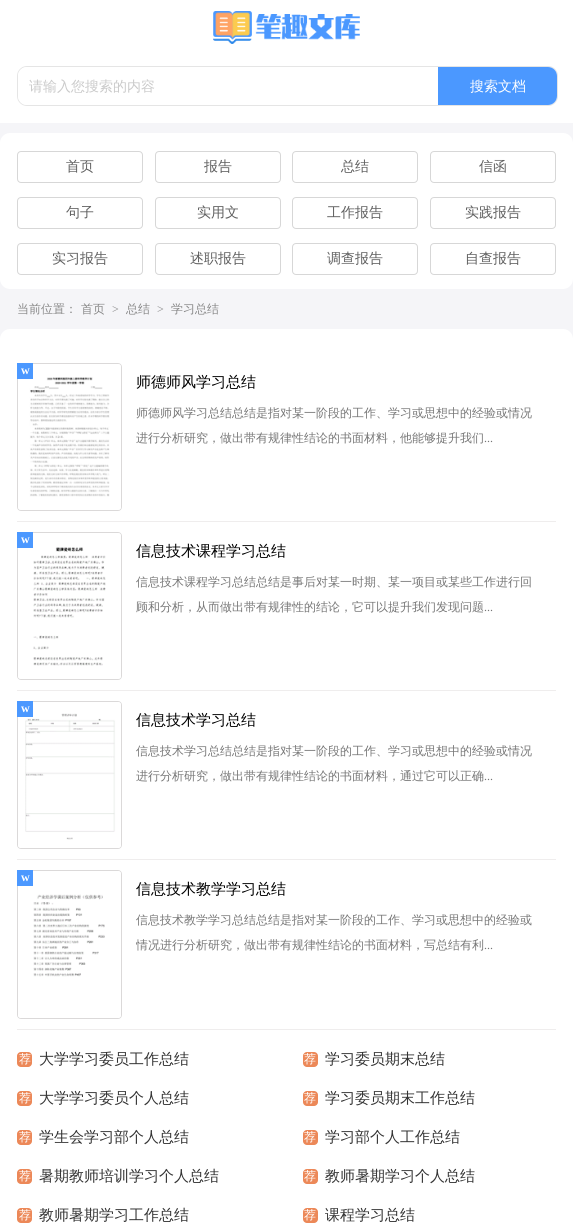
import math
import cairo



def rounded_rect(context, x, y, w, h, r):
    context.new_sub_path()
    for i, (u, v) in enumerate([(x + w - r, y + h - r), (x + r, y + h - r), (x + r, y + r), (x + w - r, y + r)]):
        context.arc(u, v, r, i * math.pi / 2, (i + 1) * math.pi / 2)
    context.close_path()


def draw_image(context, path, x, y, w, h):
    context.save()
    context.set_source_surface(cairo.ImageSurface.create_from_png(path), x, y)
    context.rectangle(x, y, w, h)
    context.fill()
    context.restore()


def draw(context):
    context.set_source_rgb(245 / 255, 245 / 255, 248 / 255)
    context.paint()
    context.set_source_rgb(1, 1, 1)
    context.rectangle(0, 0, 573, 123)
    context.fill()
    draw_image(context, "images/1.png", 213, 11, 147, 33)
    rounded_rect(context, 17.5, 66.5, 540, 39, 9.5)
    context.set_source_rgb(229 / 255, 229 / 255, 229 / 255)
    context.set_line_width(1)
    context.stroke()
    context.set_source_rgb(1, 1, 1)
    context.new_path()
    context.move_to(27, 67)
    context.line_to(362, 67)
    context.line_to(362, 105)
    context.line_to(27, 105)
    context.curve_to(22, 105, 18, 101, 18, 96)
    context.line_to(18, 76)
    context.curve_to(18, 71, 22, 67, 27, 67)
    context.close_path()
    context.fill()
    context.set_source_rgb(75 / 255, 152 / 255, 1)
    context.new_path()
    context.move_to(438, 67)
    context.line_to(548, 67)
    context.curve_to(553, 67, 557, 71, 557, 76)
    context.line_to(557, 96)
    context.curve_to(557, 101, 553, 105, 548, 105)
    context.line_to(438, 105)
    context.close_path()
    context.fill()
    context.set_source_rgb(1, 1, 1)
    rounded_rect(context, 0, 133, 573, 156, 10)
    context.fill()
    rounded_rect(context, 17.5, 151.5, 125, 31, 3.5)
    context.set_source_rgb(215 / 255, 215 / 255, 215 / 255)
    context.stroke()
    rounded_rect(context, 155.5, 151.5, 125, 31, 3.5)
    context.stroke()
    rounded_rect(context, 292.5, 151.5, 125, 31, 3.5)
    context.stroke()
    rounded_rect(context, 430.5, 151.5, 125, 31, 3.5)
    context.stroke()
    rounded_rect(context, 17.5, 197.5, 125, 31, 3.5)
    context.stroke()
    rounded_rect(context, 155.5, 197.5, 125, 31, 3.5)
    context.stroke()
    rounded_rect(context, 292.5, 197.5, 125, 31, 3.5)
    context.stroke()
    rounded_rect(context, 430.5, 197.5, 125, 31, 3.5)
    context.stroke()
    rounded_rect(context, 17.5, 243.5, 125, 31, 3.5)
    context.stroke()
    rounded_rect(context, 155.5, 243.5, 125, 31, 3.5)
    context.stroke()
    rounded_rect(context, 292.5, 243.5, 125, 31, 3.5)
    context.stroke()
    rounded_rect(context, 430.5, 243.5, 125, 31, 3.5)
    context.stroke()
    context.set_source_rgb(1, 1, 1)
    rounded_rect(context, 0, 329, 573, 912, 10)
    context.fill()
    context.set_source_rgb(239 / 255, 237 / 255, 237 / 255)
    context.rectangle(17, 521, 539, 1)
    context.fill()
    rounded_rect(context, 17.5, 363.5, 104, 147, 3.5)
    context.set_source_rgb(219 / 255, 217 / 255, 217 / 255)
    context.stroke()
    draw_image(context, "images/2.png", 18, 364, 103, 146)
    context.set_source_rgb(75 / 255, 152 / 255, 1)
    context.rectangle(17, 363, 16, 16)
    context.fill()
    context.set_source_rgb(239 / 255, 237 / 255, 237 / 255)
    context.rectangle(17, 690, 539, 1)
    context.fill()
    rounded_rect(context, 17.5, 532.5, 104, 147, 3.5)
    context.set_source_rgb(219 / 255, 217 / 255, 217 / 255)
    context.stroke()
    draw_image(context, "images/3.png", 18, 533, 103, 146)
    context.set_source_rgb(75 / 255, 152 / 255, 1)
    context.rectangle(17, 532, 16, 16)
    context.fill()
    context.set_source_rgb(239 / 255, 237 / 255, 237 / 255)
    context.rectangle(17, 859, 539, 1)
    context.fill()
    rounded_rect(context, 17.5, 701.5, 104, 147, 3.5)
    context.set_source_rgb(219 / 255, 217 / 255, 217 / 255)
    context.stroke()
    draw_image(context, "images/4.png", 18, 702, 103, 146)
    context.set_source_rgb(75 / 255, 152 / 255, 1)
    context.rectangle(17, 701, 16, 16)
    context.fill()
    context.set_source_rgb(239 / 255, 237 / 255, 237 / 255)
    context.rectangle(17, 1029, 539, 1)
    context.fill()
    rounded_rect(context, 17.5, 870.5, 104, 148, 3.5)
    context.set_source_rgb(219 / 255, 217 / 255, 217 / 255)
    context.stroke()
    draw_image(context, "images/5.png", 18, 871, 103, 147)
    context.set_source_rgb(75 / 255, 152 / 255, 1)
    context.rectangle(17, 870, 16, 16)
    context.fill()
    context.set_source_rgb(236 / 255, 136 / 255, 88 / 255)
    rounded_rect(context, 17, 1052, 15, 15, 4)
    context.fill()
    rounded_rect(context, 303, 1052, 15, 15, 4)
    context.fill()
    rounded_rect(context, 17, 1091, 15, 15, 4)
    context.fill()
    rounded_rect(context, 303, 1091, 15, 15, 4)
    context.fill()
    rounded_rect(context, 17, 1130, 15, 15, 4)
    context.fill()
    rounded_rect(context, 303, 1130, 15, 15, 4)
    context.fill()
    rounded_rect(context, 17, 1169, 15, 15, 4)
    context.fill()
    rounded_rect(context, 303, 1169, 15, 15, 4)
    context.fill()
    rounded_rect(context, 17, 1208, 15, 15, 4)
    context.fill()
    rounded_rect(context, 303, 1208, 15, 15, 4)
    context.fill()
    context.select_font_face("WenQuanYi Zen Hei Medium")
    context.set_font_size(14)
    context.set_source_rgb(202 / 255, 202 / 255, 202 / 255)
    context.move_to(29, 91)
    context.show_text("请输入您搜索的内容")
    context.set_source_rgb(1, 1, 1)
    context.move_to(470, 91)
    context.show_text("搜索文档")
    context.set_source_rgb(95 / 255, 95 / 255, 95 / 255)
    context.move_to(66, 171)
    context.show_text("首页")
    context.move_to(204, 171)
    context.show_text("报告")
    context.move_to(341, 171)
    context.show_text("总结")
    context.move_to(479, 171)
    context.show_text("信函")
    context.move_to(66, 217)
    context.show_text("句子")
    context.move_to(197, 217)
    context.show_text("实用文")
    context.move_to(327, 217)
    context.show_text("工作报告")
    context.move_to(465, 217)
    context.show_text("实践报告")
    context.move_to(52, 263)
    context.show_text("实习报告")
    context.move_to(190, 263)
    context.show_text("述职报告")
    context.move_to(327, 263)
    context.show_text("调查报告")
    context.move_to(465, 263)
    context.show_text("自查报告")
    context.set_font_size(12)
    context.set_source_rgb(136 / 255, 136 / 255, 136 / 255)
    context.move_to(17, 313)
    context.show_text("当前位置：")
    context.move_to(81, 313)
    context.show_text("首页")
    context.select_font_face("Liberation Serif")
    context.move_to(112, 313)
    context.show_text(">")
    context.select_font_face("WenQuanYi Zen Hei Medium")
    context.move_to(126, 313)
    context.show_text("总结")
    context.select_font_face("Liberation Serif")
    context.move_to(157, 313)
    context.show_text(">")
    context.select_font_face("WenQuanYi Zen Hei Medium")
    context.move_to(171, 313)
    context.show_text("学习总结")
    context.select_font_face("Liberation Serif", cairo.FontSlant.NORMAL, cairo.FontWeight.BOLD)
    context.set_source_rgb(1, 1, 1)
    context.move_to(21, 374)
    context.show_text("w")
    context.select_font_face("WenQuanYi Zen Hei Medium")
    context.set_font_size(15)
    context.set_source_rgb(0, 0, 0)
    context.move_to(136, 387)
    context.show_text("师德师风学习总结")
    context.set_font_size(12)
    context.set_source_rgb(119 / 255, 119 / 255, 119 / 255)
    context.move_to(136, 417)
    context.show_text("师德师风学习总结总结是指对某一阶段的工作、学习或思想中的经验或情况")
    context.save()
    context.rectangle(136, 401, 403, 44)
    context.clip()
    context.move_to(136, 442)
    context.show_text("进行分析研究，做出带有规律性结论的书面材料，他能够提升我们")
    context.restore()
    context.select_font_face("Liberation Serif")
    context.move_to(484, 442)
    context.show_text("...")
    context.select_font_face("Liberation Serif", cairo.FontSlant.NORMAL, cairo.FontWeight.BOLD)
    context.set_source_rgb(1, 1, 1)
    context.move_to(21, 543)
    context.show_text("w")
    context.select_font_face("WenQuanYi Zen Hei Medium")
    context.set_font_size(15)
    context.set_source_rgb(0, 0, 0)
    context.move_to(136, 556)
    context.show_text("信息技术课程学习总结")
    context.set_font_size(12)
    context.set_source_rgb(119 / 255, 119 / 255, 119 / 255)
    context.move_to(136, 586)
    context.show_text("信息技术课程学习总结总结是事后对某一时期、某一项目或某些工作进行回")
    context.move_to(136, 611)
    context.show_text("顾和分析，从而做出带有规律性的结论，它可以提升我们发现问题")
    context.select_font_face("Liberation Serif")
    context.move_to(484, 611)
    context.show_text("...")
    context.select_font_face("Liberation Serif", cairo.FontSlant.NORMAL, cairo.FontWeight.BOLD)
    context.set_source_rgb(1, 1, 1)
    context.move_to(21, 712)
    context.show_text("w")
    context.select_font_face("WenQuanYi Zen Hei Medium")
    context.set_font_size(15)
    context.set_source_rgb(0, 0, 0)
    context.move_to(136, 725)
    context.show_text("信息技术学习总结")
    context.set_font_size(12)
    context.set_source_rgb(119 / 255, 119 / 255, 119 / 255)
    context.move_to(136, 755)
    context.show_text("信息技术学习总结总结是指对某一阶段的工作、学习或思想中的经验或情况")
    context.save()
    context.rectangle(136, 739, 403, 44)
    context.clip()
    context.move_to(136, 780)
    context.show_text("进行分析研究，做出带有规律性结论的书面材料，通过它可以正确")
    context.restore()
    context.select_font_face("Liberation Serif")
    context.move_to(484, 780)
    context.show_text("...")
    context.select_font_face("Liberation Serif", cairo.FontSlant.NORMAL, cairo.FontWeight.BOLD)
    context.set_source_rgb(1, 1, 1)
    context.move_to(21, 881)
    context.show_text("w")
    context.select_font_face("WenQuanYi Zen Hei Medium")
    context.set_font_size(15)
    context.set_source_rgb(0, 0, 0)
    context.move_to(136, 894)
    context.show_text("信息技术教学学习总结")
    context.set_font_size(12)
    context.set_source_rgb(119 / 255, 119 / 255, 119 / 255)
    context.move_to(136, 924)
    context.show_text("信息技术教学学习总结总结是指对某一阶段的工作、学习或思想中的经验或")
    context.save()
    context.rectangle(136, 908, 403, 44)
    context.clip()
    context.move_to(136, 949)
    context.show_text("情况进行分析研究，做出带有规律性结论的书面材料，写总结有利")
    context.restore()
    context.select_font_face("Liberation Serif")
    context.move_to(484, 949)
    context.show_text("...")
    context.select_font_face("WenQuanYi Zen Hei Medium")
    context.set_source_rgb(1, 1, 1)
    context.move_to(19, 1063)
    context.show_text("荐")
    context.set_font_size(15)
    context.set_source_rgb(51 / 255, 51 / 255, 51 / 255)
    context.move_to(39, 1064)
    context.show_text("大学学习委员工作总结")
    context.set_font_size(12)
    context.set_source_rgb(1, 1, 1)
    context.move_to(304, 1063)
    context.show_text("荐")
    context.set_font_size(15)
    context.set_source_rgb(51 / 255, 51 / 255, 51 / 255)
    context.move_to(325, 1064)
    context.show_text("学习委员期末总结")
    context.set_font_size(12)
    context.set_source_rgb(1, 1, 1)
    context.move_to(19, 1102)
    context.show_text("荐")
    context.set_font_size(15)
    context.set_source_rgb(51 / 255, 51 / 255, 51 / 255)
    context.move_to(39, 1103)
    context.show_text("大学学习委员个人总结")
    context.set_font_size(12)
    context.set_source_rgb(1, 1, 1)
    context.move_to(304, 1102)
    context.show_text("荐")
    context.set_font_size(15)
    context.set_source_rgb(51 / 255, 51 / 255, 51 / 255)
    context.move_to(325, 1103)
    context.show_text("学习委员期末工作总结")
    context.set_font_size(12)
    context.set_source_rgb(1, 1, 1)
    context.move_to(19, 1141)
    context.show_text("荐")
    context.set_font_size(15)
    context.set_source_rgb(51 / 255, 51 / 255, 51 / 255)
    context.move_to(39, 1142)
    context.show_text("学生会学习部个人总结")
    context.set_font_size(12)
    context.set_source_rgb(1, 1, 1)
    context.move_to(304, 1141)
    context.show_text("荐")
    context.set_font_size(15)
    context.set_source_rgb(51 / 255, 51 / 255, 51 / 255)
    context.move_to(325, 1142)
    context.show_text("学习部个人工作总结")
    context.set_font_size(12)
    context.set_source_rgb(1, 1, 1)
    context.move_to(19, 1180)
    context.show_text("荐")
    context.set_font_size(15)
    context.set_source_rgb(51 / 255, 51 / 255, 51 / 255)
    context.move_to(39, 1181)
    context.show_text("暑期教师培训学习个人总结")
    context.set_font_size(12)
    context.set_source_rgb(1, 1, 1)
    context.move_to(304, 1180)
    context.show_text("荐")
    context.set_font_size(15)
    context.set_source_rgb(51 / 255, 51 / 255, 51 / 255)
    context.move_to(325, 1181)
    context.show_text("教师暑期学习个人总结")
    context.set_font_size(12)
    context.set_source_rgb(1, 1, 1)
    context.move_to(19, 1219)
    context.show_text("荐")
    context.set_font_size(15)
    context.set_source_rgb(51 / 255, 51 / 255, 51 / 255)
    context.move_to(39, 1220)
    context.show_text("教师暑期学习工作总结")
    context.set_font_size(12)
    context.set_source_rgb(1, 1, 1)
    context.move_to(304, 1219)
    context.show_text("荐")
    context.set_font_size(15)
    context.set_source_rgb(51 / 255, 51 / 255, 51 / 255)
    context.move_to(325, 1220)
    context.show_text("课程学习总结")


surface = cairo.ImageSurface(cairo.Format.RGB24, 573, 1231)
context = cairo.Context(surface)
options = cairo.FontOptions()
options.set_hint_metrics(cairo.HintMetrics.OFF)
options.set_hint_style(cairo.HintStyle.NONE)
context.set_font_options(options)
context.set_miter_limit(4)
draw(context)
surface.write_to_png("out.png")
